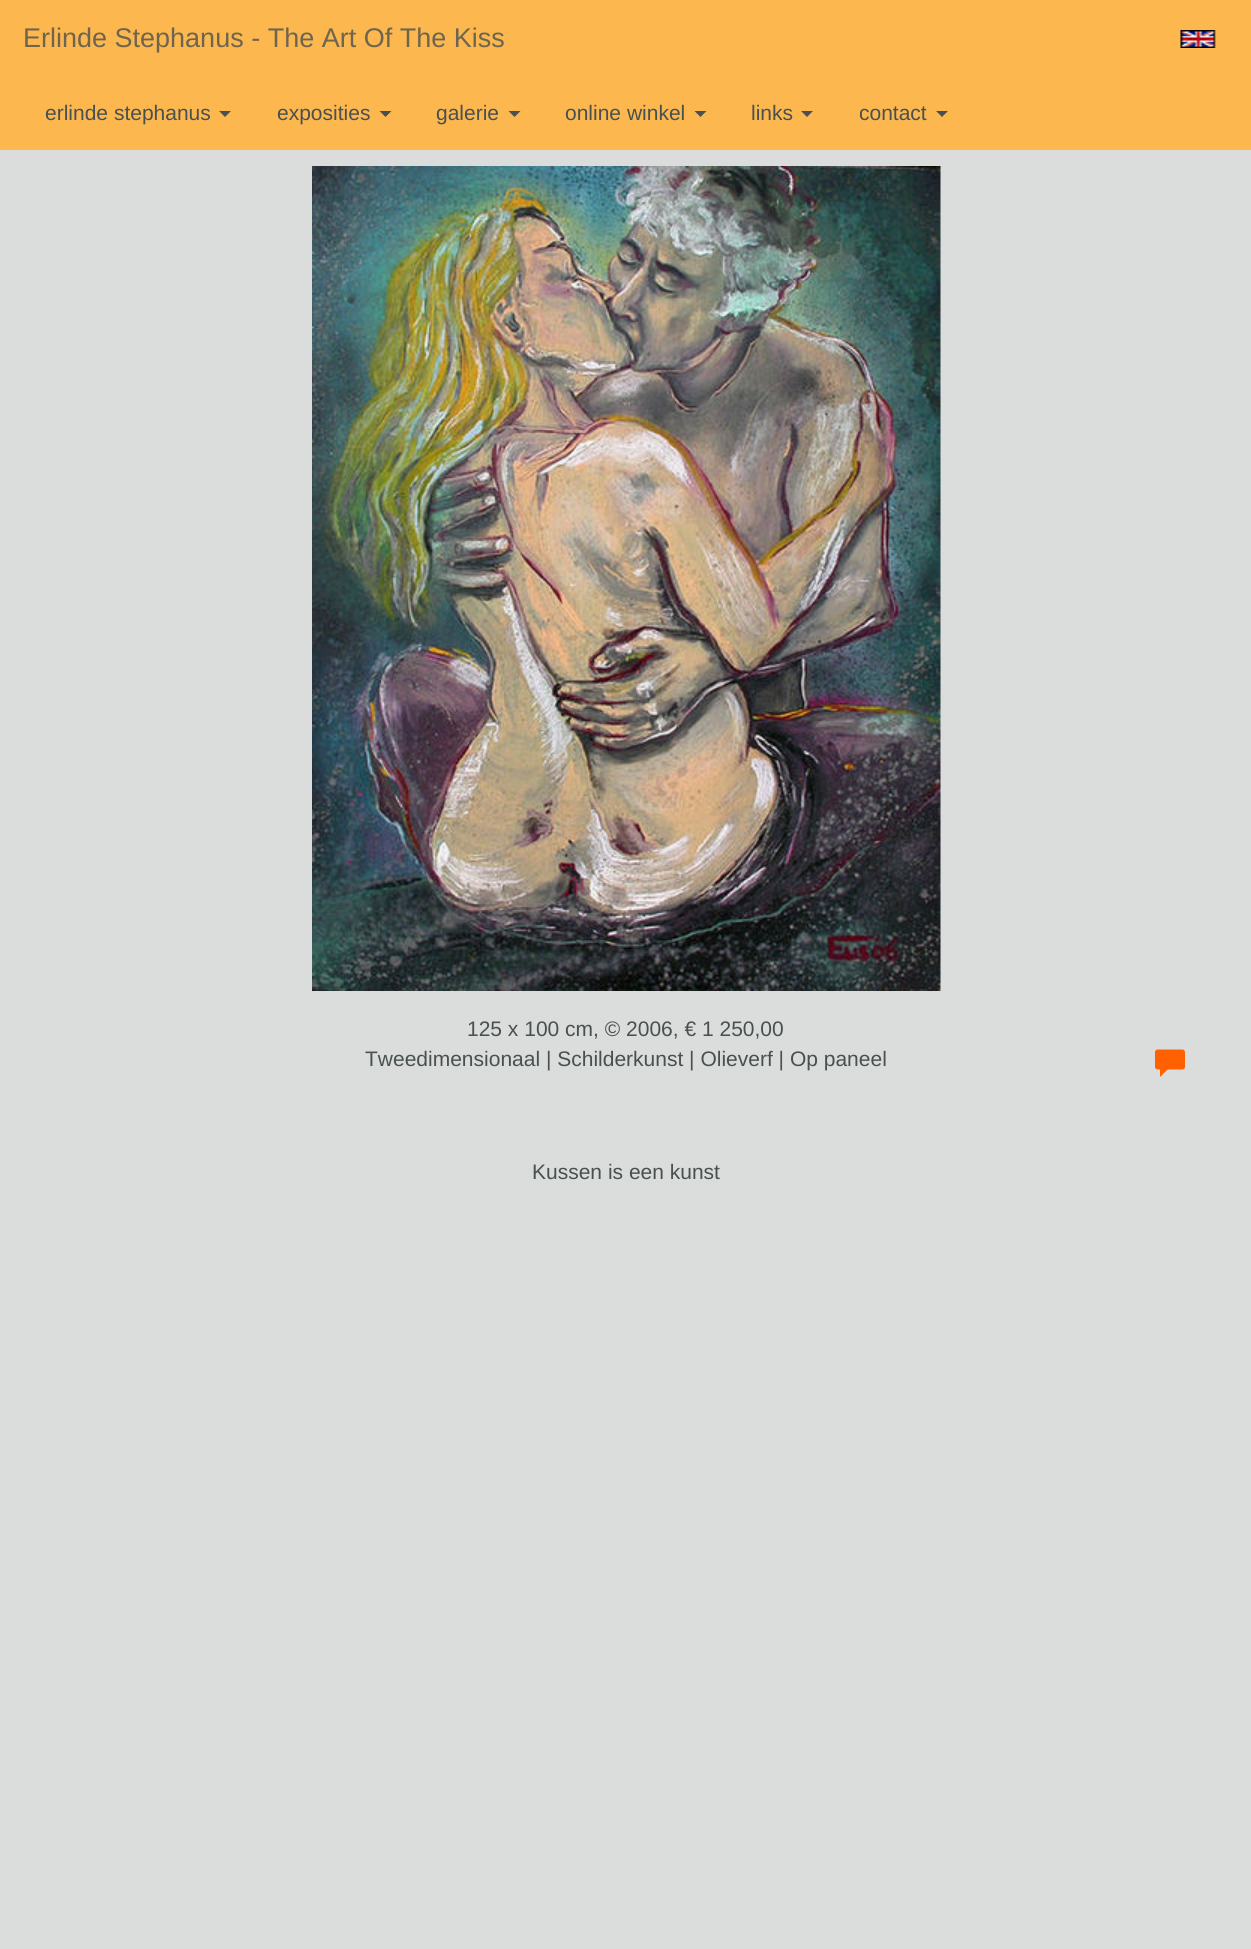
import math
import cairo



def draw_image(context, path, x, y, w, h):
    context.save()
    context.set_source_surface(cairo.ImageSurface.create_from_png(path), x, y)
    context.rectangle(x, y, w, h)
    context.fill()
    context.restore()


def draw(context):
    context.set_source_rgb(219 / 255, 220 / 255, 220 / 255)
    context.paint()
    context.set_source_rgb(252 / 255, 183 / 255, 79 / 255)
    context.rectangle(0, 0, 1251, 150)
    context.fill()
    draw_image(context, "images/1.png", 1180, 30, 36, 18)
    context.set_source_rgb(73 / 255, 80 / 255, 80 / 255)
    context.new_path()
    context.move_to(219, 111)
    context.line_to(231, 111)
    context.line_to(225, 117)
    context.close_path()
    context.fill()
    context.new_path()
    context.move_to(379.5, 111)
    context.line_to(391.5, 111)
    context.line_to(385.5, 117)
    context.close_path()
    context.fill()
    context.new_path()
    context.move_to(508.5, 111)
    context.line_to(520.5, 111)
    context.line_to(514.5, 117)
    context.close_path()
    context.fill()
    context.new_path()
    context.move_to(694.5, 111)
    context.line_to(706.5, 111)
    context.line_to(700.5, 117)
    context.close_path()
    context.fill()
    context.new_path()
    context.move_to(801, 111)
    context.line_to(813, 111)
    context.line_to(807, 117)
    context.close_path()
    context.fill()
    context.new_path()
    context.move_to(936, 111)
    context.line_to(948, 111)
    context.line_to(942, 117)
    context.close_path()
    context.fill()
    draw_image(context, "images/2.png", 312, 166, 629, 825)
    draw_image(context, "images/3.png", 1155, 1049, 30, 28)
    context.select_font_face("Liberation Sans")
    context.set_font_size(27)
    context.set_source_rgb(109 / 255, 101 / 255, 80 / 255)
    context.move_to(23, 47)
    context.show_text("Erlinde Stephanus - The Art Of The Kiss")
    context.set_font_size(21)
    context.set_source_rgb(73 / 255, 80 / 255, 80 / 255)
    context.move_to(45, 120)
    context.show_text("erlinde stephanus")
    context.move_to(277, 120)
    context.show_text("exposities")
    context.move_to(436, 120)
    context.show_text("galerie")
    context.move_to(565, 120)
    context.show_text("online winkel")
    context.move_to(751, 120)
    context.show_text("links")
    context.move_to(859, 120)
    context.show_text("contact")
    context.move_to(467, 1036)
    context.show_text("125 x 100 cm, © 2006, € 1 250,00")
    context.move_to(365, 1066)
    context.show_text("Tweedimensionaal | Schilderkunst | Olieverf | Op paneel")
    context.move_to(532, 1179)
    context.show_text("Kussen is een kunst")


surface = cairo.ImageSurface(cairo.Format.RGB24, 1251, 1949)
context = cairo.Context(surface)
options = cairo.FontOptions()
options.set_hint_metrics(cairo.HintMetrics.OFF)
options.set_hint_style(cairo.HintStyle.NONE)
context.set_font_options(options)
context.set_miter_limit(4)
draw(context)
surface.write_to_png("out.png")
